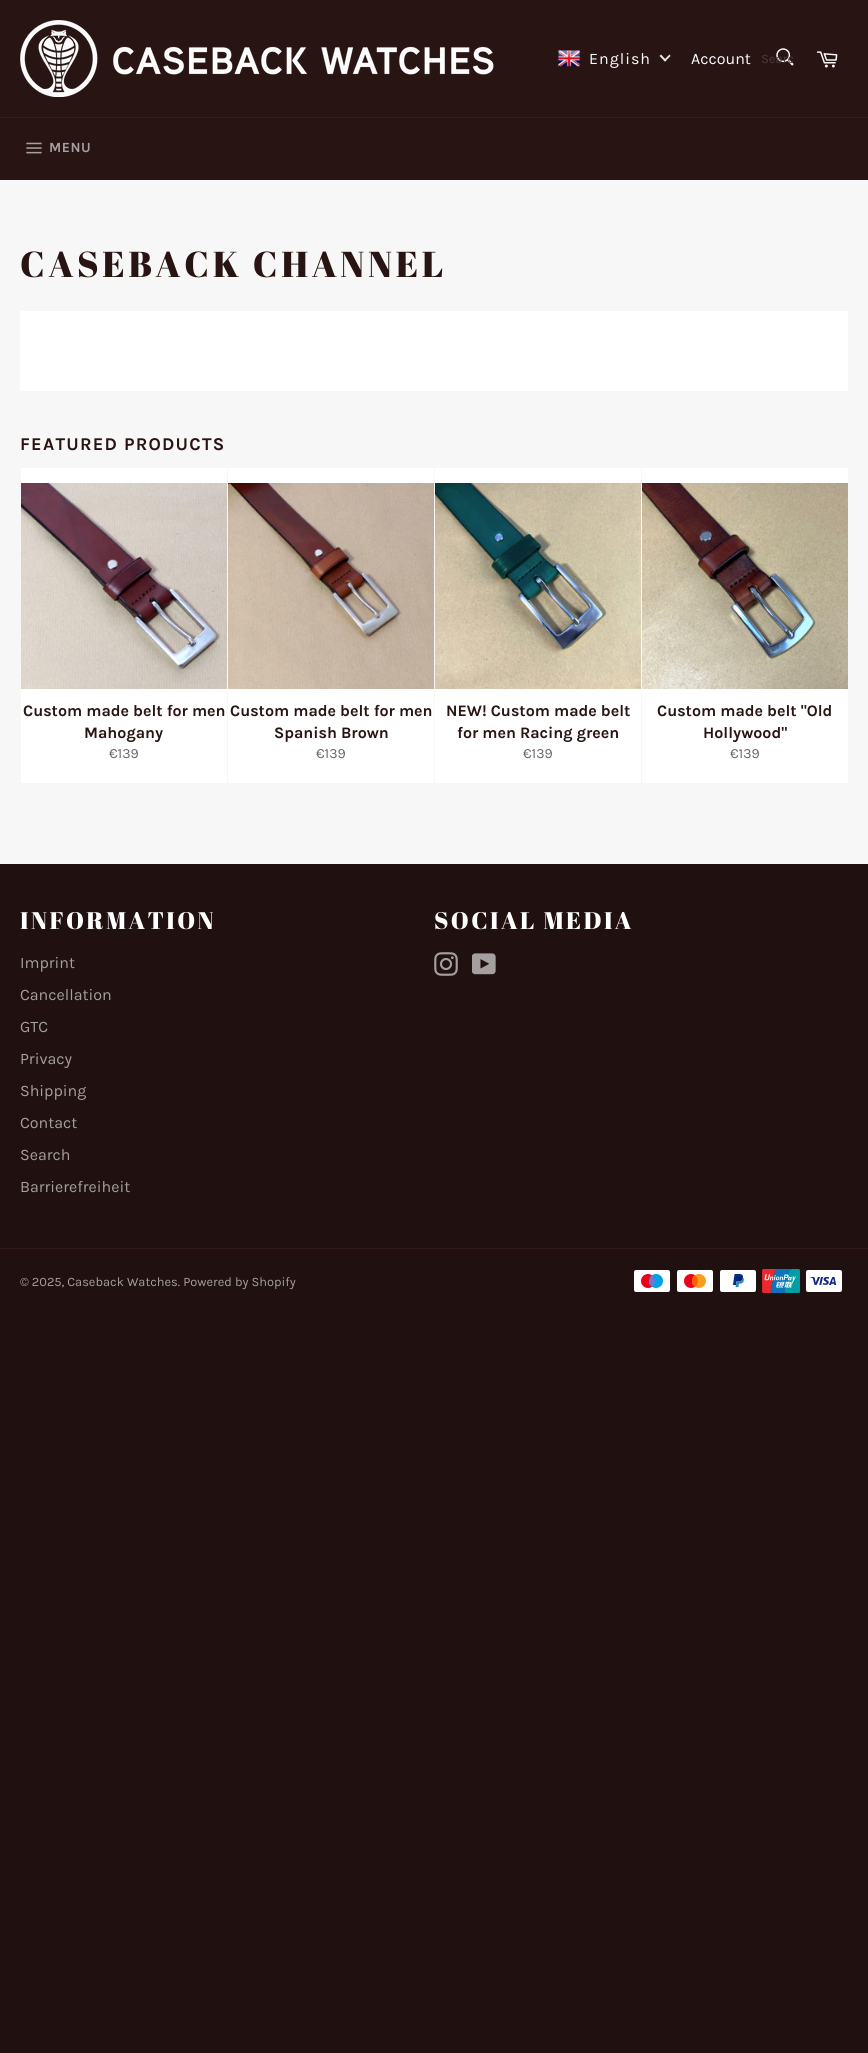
import math
import cairo



def draw_spaced(context, x, y, s, letter, word):
    context.move_to(x, y)
    for ch in s:
        context.show_text(ch)
        context.rel_move_to(letter + word * (ch == ' '), 0)


def draw_image(context, path, x, y, w, h):
    context.save()
    context.set_source_surface(cairo.ImageSurface.create_from_png(path), x, y)
    context.rectangle(x, y, w, h)
    context.fill()
    context.restore()


def draw(context):
    context.set_source_rgb(32 / 255, 16 / 255, 16 / 255)
    context.paint()
    context.set_source_rgb(247 / 255, 247 / 255, 247 / 255)
    context.rectangle(0, 180, 868, 684)
    context.fill()
    context.set_source_rgb(41 / 255, 20 / 255, 20 / 255)
    context.rectangle(0, 0, 868, 117)
    context.fill()
    draw_image(context, "images/1.png", 20, 20, 474, 77)
    draw_image(context, "images/2.png", 557, 50, 24, 17)
    context.set_source_rgb(234 / 255, 232 / 255, 232 / 255)
    context.new_path()
    context.move_to(669.5, 54.5)
    context.line_to(670.5, 56)
    context.line_to(665, 61.5)
    context.line_to(663.5, 60.5)
    context.close_path()
    context.fill()
    context.new_path()
    context.move_to(661, 54.5)
    context.line_to(666.5, 60.5)
    context.line_to(665, 61.5)
    context.line_to(659.5, 56)
    context.close_path()
    context.fill()
    draw_image(context, "images/3.png", 776, 48, 18, 18)
    draw_image(context, "images/4.png", 816, 51, 22, 17)
    context.set_source_rgb(41 / 255, 20 / 255, 20 / 255)
    context.rectangle(0, 118, 868, 62)
    context.fill()
    context.set_source_rgb(58 / 255, 28 / 255, 28 / 255)
    context.rectangle(0, 117, 868, 1)
    context.fill()
    draw_image(context, "images/5.png", 26, 142, 16, 12)
    context.set_source_rgb(1, 1, 1)
    context.rectangle(20, 311, 828, 80)
    context.fill()
    context.rectangle(21, 468, 206, 315)
    context.fill()
    draw_image(context, "images/6.png", 21, 483, 206, 206)
    context.rectangle(228, 468, 206, 315)
    context.fill()
    draw_image(context, "images/7.png", 228, 483, 206, 206)
    context.rectangle(435, 468, 206, 315)
    context.fill()
    draw_image(context, "images/8.png", 435, 483, 206, 206)
    context.rectangle(642, 468, 206, 315)
    context.fill()
    draw_image(context, "images/9.png", 642, 483, 206, 206)
    draw_image(context, "images/10.png", 434, 952, 24, 24)
    draw_image(context, "images/11.png", 472, 953, 24, 22)
    context.set_source_rgb(49 / 255, 25 / 255, 25 / 255)
    context.rectangle(0, 1248, 868, 1)
    context.fill()
    draw_image(context, "images/12.png", 634, 1270, 36, 22)
    draw_image(context, "images/13.png", 677, 1270, 36, 22)
    draw_image(context, "images/14.png", 720, 1270, 36, 22)
    draw_image(context, "images/15.png", 762, 1269, 38, 24)
    draw_image(context, "images/16.png", 806, 1270, 36, 22)
    context.select_font_face("Karla")
    context.set_font_size(16)
    context.set_source_rgb(1, 1, 1)
    draw_spaced(context, 589, 64, "English", 1, 0)
    context.move_to(691, 64)
    context.show_text("Account")
    context.set_font_size(13)
    context.set_source_rgb(75 / 255, 58 / 255, 58 / 255)
    context.move_to(761, 63)
    context.show_text("Searc")
    context.select_font_face("Karla", cairo.FontSlant.NORMAL, cairo.FontWeight.BOLD)
    context.set_font_size(14)
    context.set_source_rgb(166 / 255, 159 / 255, 159 / 255)
    draw_spaced(context, 49, 152, "MENU", 0.5, 0)
    context.select_font_face("Abril Fatface")
    context.set_font_size(36)
    context.set_source_rgb(41 / 255, 20 / 255, 20 / 255)
    draw_spaced(context, 20, 277, "CASEBACK CHANNEL", 3.6, 0)
    context.select_font_face("Karla", cairo.FontSlant.NORMAL, cairo.FontWeight.BOLD)
    context.set_font_size(18)
    draw_spaced(context, 20, 450, "FEATURED PRODUCTS", 1.25, 0)
    context.set_font_size(16)
    context.move_to(23, 716)
    context.show_text("Custom made belt for men")
    context.move_to(84, 738)
    context.show_text("Mahogany")
    context.select_font_face("Karla")
    context.set_font_size(14)
    context.set_source_rgb(102 / 255, 102 / 255, 102 / 255)
    context.move_to(109, 758)
    context.show_text("€139")
    context.select_font_face("Karla", cairo.FontSlant.NORMAL, cairo.FontWeight.BOLD)
    context.set_font_size(16)
    context.set_source_rgb(41 / 255, 20 / 255, 20 / 255)
    context.move_to(230, 716)
    context.show_text("Custom made belt for men")
    context.move_to(274, 738)
    context.show_text("Spanish Brown")
    context.select_font_face("Karla")
    context.set_font_size(14)
    context.set_source_rgb(102 / 255, 102 / 255, 102 / 255)
    context.move_to(316, 758)
    context.show_text("€139")
    context.select_font_face("Karla", cairo.FontSlant.NORMAL, cairo.FontWeight.BOLD)
    context.set_font_size(16)
    context.set_source_rgb(41 / 255, 20 / 255, 20 / 255)
    context.move_to(446, 716)
    context.show_text("NEW! Custom made belt")
    context.move_to(457, 738)
    context.show_text("for men Racing green")
    context.select_font_face("Karla")
    context.set_font_size(14)
    context.set_source_rgb(102 / 255, 102 / 255, 102 / 255)
    context.move_to(523, 758)
    context.show_text("€139")
    context.select_font_face("Karla", cairo.FontSlant.NORMAL, cairo.FontWeight.BOLD)
    context.set_font_size(16)
    context.set_source_rgb(41 / 255, 20 / 255, 20 / 255)
    context.move_to(657, 716)
    context.show_text("Custom made belt \"Old")
    context.move_to(703, 738)
    context.show_text("Hollywood\"")
    context.select_font_face("Karla")
    context.set_font_size(14)
    context.set_source_rgb(102 / 255, 102 / 255, 102 / 255)
    context.move_to(730, 758)
    context.show_text("€139")
    context.select_font_face("Abril Fatface")
    context.set_font_size(24)
    context.set_source_rgb(1, 1, 1)
    draw_spaced(context, 20, 929, "INFORMATION", 2.4, 0)
    context.select_font_face("Karla")
    context.set_font_size(16)
    context.set_source_rgb(166 / 255, 159 / 255, 159 / 255)
    context.move_to(20, 968)
    context.show_text("Imprint")
    context.move_to(20, 1000)
    context.show_text("Cancellation")
    context.move_to(20, 1032)
    context.show_text("GTC")
    context.move_to(20, 1064)
    context.show_text("Privacy")
    context.move_to(20, 1096)
    context.show_text("Shipping")
    context.move_to(20, 1128)
    context.show_text("Contact")
    context.move_to(20, 1160)
    context.show_text("Search")
    context.move_to(20, 1192)
    context.show_text("Barrierefreiheit")
    context.select_font_face("Abril Fatface")
    context.set_font_size(24)
    context.set_source_rgb(1, 1, 1)
    draw_spaced(context, 434, 929, "SOCIAL MEDIA", 2.4, 0)
    context.select_font_face("Karla")
    context.set_font_size(12.8)
    context.set_source_rgb(166 / 255, 159 / 255, 159 / 255)
    context.move_to(20, 1286)
    context.show_text("© 2025, Caseback Watches. Powered by Shopify")


surface = cairo.ImageSurface(cairo.Format.RGB24, 868, 2053)
context = cairo.Context(surface)
options = cairo.FontOptions()
options.set_hint_metrics(cairo.HintMetrics.OFF)
options.set_hint_style(cairo.HintStyle.NONE)
context.set_font_options(options)
context.set_miter_limit(4)
draw(context)
surface.write_to_png("out.png")
